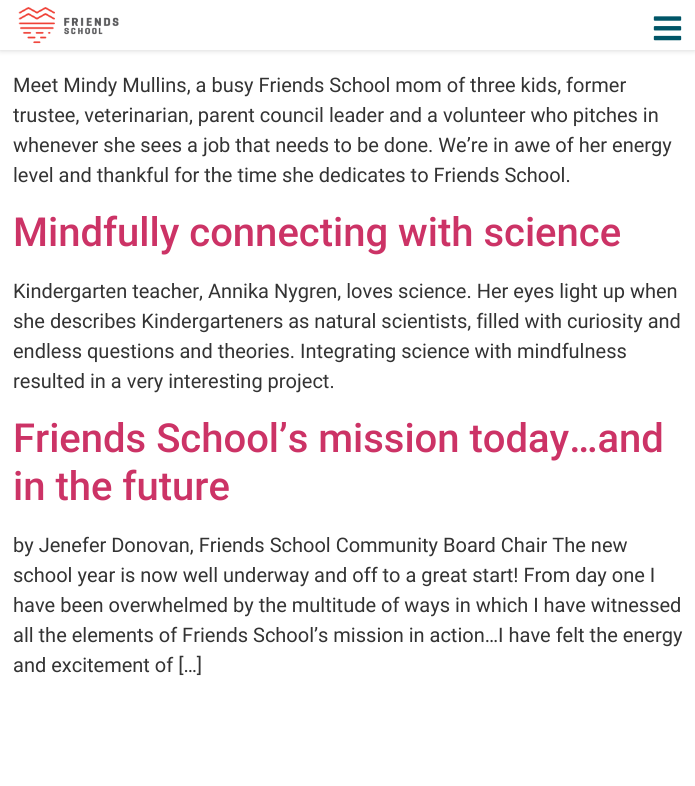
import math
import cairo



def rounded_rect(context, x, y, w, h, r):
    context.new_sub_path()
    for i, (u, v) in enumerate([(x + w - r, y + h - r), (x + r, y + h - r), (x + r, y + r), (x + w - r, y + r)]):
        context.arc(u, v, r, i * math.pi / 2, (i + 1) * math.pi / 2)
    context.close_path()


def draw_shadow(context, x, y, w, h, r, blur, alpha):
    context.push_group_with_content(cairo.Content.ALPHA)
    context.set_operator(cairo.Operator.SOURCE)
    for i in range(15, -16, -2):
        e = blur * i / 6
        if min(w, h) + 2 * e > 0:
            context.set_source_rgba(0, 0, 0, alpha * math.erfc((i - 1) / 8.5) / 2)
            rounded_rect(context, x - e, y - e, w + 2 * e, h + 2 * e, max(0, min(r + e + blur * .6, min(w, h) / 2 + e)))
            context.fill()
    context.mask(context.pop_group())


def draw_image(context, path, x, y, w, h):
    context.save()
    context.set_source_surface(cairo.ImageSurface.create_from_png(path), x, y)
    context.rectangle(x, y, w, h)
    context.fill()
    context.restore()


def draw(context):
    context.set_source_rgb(1, 1, 1)
    context.paint()
    context.set_source_rgb(129 / 255, 129 / 255, 129 / 255)
    draw_shadow(context, 0, 0, 695, 50, 0, 3, 0.37)
    context.set_source_rgb(1, 1, 1)
    context.rectangle(0, 0, 695, 50)
    context.fill()
    draw_image(context, "images/1.png", 18, 7, 101, 37)
    draw_image(context, "images/2.png", 653, 16, 29, 25)
    context.select_font_face("Roboto")
    context.set_font_size(20)
    context.set_source_rgb(51 / 255, 51 / 255, 51 / 255)
    context.move_to(13, 92)
    context.show_text("Meet Mindy Mullins, a busy Friends School mom of three kids, former")
    context.move_to(13, 122)
    context.show_text("trustee, veterinarian, parent council leader and a volunteer who pitches in")
    context.move_to(13, 152)
    context.show_text("whenever she sees a job that needs to be done. We’re in awe of her energy")
    context.move_to(13, 182)
    context.show_text("level and thankful for the time she dedicates to Friends School.")
    context.select_font_face("Roboto Medium")
    context.set_font_size(40)
    context.set_source_rgb(204 / 255, 51 / 255, 102 / 255)
    context.move_to(13, 246)
    context.show_text("Mindfully connecting with science")
    context.select_font_face("Roboto")
    context.set_font_size(20)
    context.set_source_rgb(51 / 255, 51 / 255, 51 / 255)
    context.move_to(13, 298)
    context.show_text("Kindergarten teacher, Annika Nygren, loves science. Her eyes light up when")
    context.move_to(13, 328)
    context.show_text("she describes Kindergarteners as natural scientists, filled with curiosity and")
    context.move_to(13, 358)
    context.show_text("endless questions and theories. Integrating science with mindfulness")
    context.move_to(13, 388)
    context.show_text("resulted in a very interesting project.")
    context.select_font_face("Roboto Medium")
    context.set_font_size(40)
    context.set_source_rgb(204 / 255, 51 / 255, 102 / 255)
    context.move_to(13, 452)
    context.show_text("Friends School’s mission today…and")
    context.move_to(13, 500)
    context.show_text("in the future")
    context.select_font_face("Roboto")
    context.set_font_size(20)
    context.set_source_rgb(51 / 255, 51 / 255, 51 / 255)
    context.move_to(13, 552)
    context.show_text("by Jenefer Donovan, Friends School Community Board Chair The new")
    context.move_to(13, 582)
    context.show_text("school year is now well underway and off to a great start! From day one I")
    context.move_to(13, 612)
    context.show_text("have been overwhelmed by the multitude of ways in which I have witnessed")
    context.move_to(13, 642)
    context.show_text("all the elements of Friends School’s mission in action…I have felt the energy")
    context.move_to(13, 672)
    context.show_text("and excitement of […]")


surface = cairo.ImageSurface(cairo.Format.RGB24, 695, 786)
context = cairo.Context(surface)
options = cairo.FontOptions()
options.set_hint_metrics(cairo.HintMetrics.OFF)
options.set_hint_style(cairo.HintStyle.NONE)
context.set_font_options(options)
context.set_miter_limit(4)
draw(context)
surface.write_to_png("out.png")
